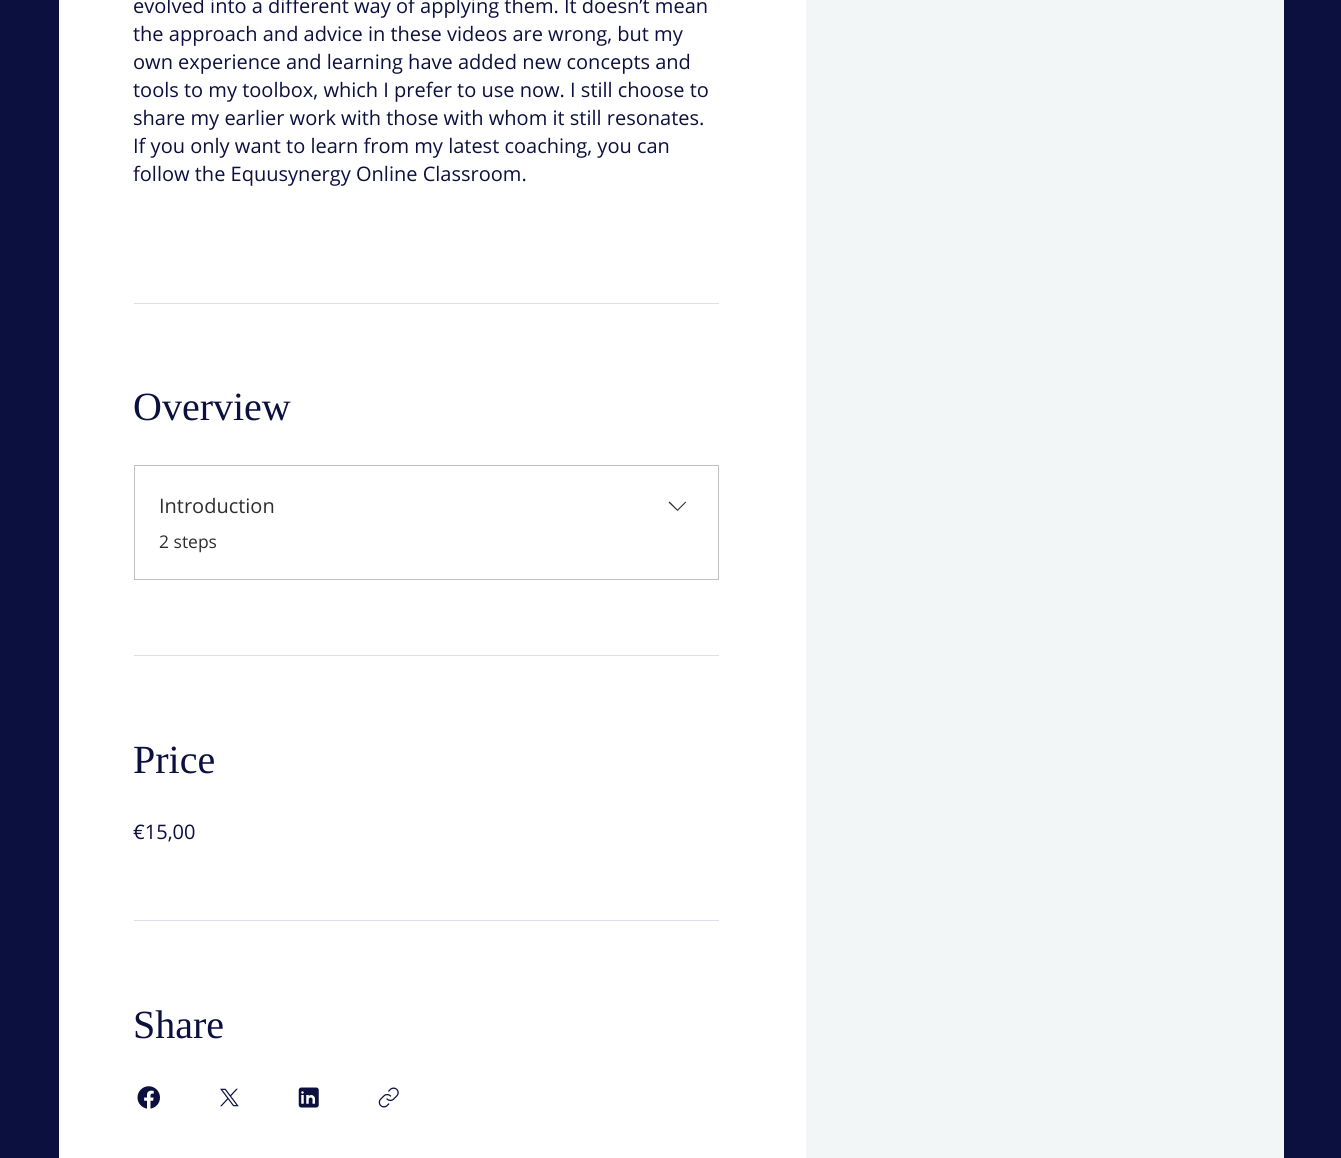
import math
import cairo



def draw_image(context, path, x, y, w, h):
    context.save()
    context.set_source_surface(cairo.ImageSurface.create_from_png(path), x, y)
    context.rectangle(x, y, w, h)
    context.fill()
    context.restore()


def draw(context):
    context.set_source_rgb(12 / 255, 16 / 255, 63 / 255)
    context.paint()
    context.set_source_rgb(1, 1, 1)
    context.rectangle(59, 0, 747, 1158)
    context.fill()
    context.set_source_rgb(227 / 255, 221 / 255, 238 / 255)
    context.rectangle(134, 303, 585, 1)
    context.fill()
    context.rectangle(134, 655, 585, 1)
    context.fill()
    context.rectangle(134.5, 465.5, 584, 114)
    context.set_source_rgb(193 / 255, 192 / 255, 192 / 255)
    context.set_line_width(1)
    context.stroke()
    context.set_source_rgb(47 / 255, 46 / 255, 46 / 255)
    context.set_fill_rule(cairo.FillRule.EVEN_ODD)
    context.new_path()
    context.move_to(685.5, 501.5)
    context.line_to(686, 502.5)
    context.line_to(677.5, 511)
    context.line_to(668.5, 502.5)
    context.line_to(669.5, 501.5)
    context.line_to(677.5, 509.5)
    context.close_path()
    context.fill()
    context.set_source_rgb(227 / 255, 221 / 255, 238 / 255)
    context.rectangle(134, 920, 585, 1)
    context.fill()
    draw_image(context, "images/1.png", 137, 1086, 23, 23)
    draw_image(context, "images/2.png", 220, 1088, 19, 19)
    draw_image(context, "images/3.png", 298, 1087, 21, 21)
    draw_image(context, "images/4.png", 378, 1087, 21, 21)
    context.set_source_rgb(242 / 255, 246 / 255, 246 / 255)
    context.rectangle(806, 0, 478, 1158)
    context.fill()
    context.select_font_face("Open Sans")
    context.set_font_size(20)
    context.set_source_rgb(12 / 255, 16 / 255, 63 / 255)
    context.move_to(133, 13)
    context.show_text("evolved into a different way of applying them. It doesn’t mean")
    context.move_to(133, 41)
    context.show_text("the approach and advice in these videos are wrong, but my")
    context.move_to(133, 69)
    context.show_text("own experience and learning have added new concepts and")
    context.move_to(133, 97)
    context.show_text("tools to my toolbox, which I prefer to use now. I still choose to")
    context.move_to(133, 125)
    context.show_text("share my earlier work with those with whom it still resonates.")
    context.move_to(133, 153)
    context.show_text("If you only want to learn from my latest coaching, you can")
    context.move_to(133, 181)
    context.show_text("follow the Equusynergy Online Classroom.")
    context.select_font_face("Liberation Serif")
    context.set_font_size(40)
    context.move_to(133, 420)
    context.show_text("Overview")
    context.select_font_face("Open Sans")
    context.set_font_size(20)
    context.set_source_rgb(47 / 255, 46 / 255, 46 / 255)
    context.move_to(159, 513)
    context.show_text("Introduction")
    context.set_font_size(17.5)
    context.move_to(159, 548)
    context.show_text("2 steps")
    context.select_font_face("Liberation Serif")
    context.set_font_size(40)
    context.set_source_rgb(12 / 255, 16 / 255, 63 / 255)
    context.move_to(133, 773)
    context.show_text("Price")
    context.select_font_face("Open Sans")
    context.set_font_size(20)
    context.move_to(133, 839)
    context.show_text("€15,00")
    context.select_font_face("Liberation Serif")
    context.set_font_size(40)
    context.move_to(133, 1038)
    context.show_text("Share")


surface = cairo.ImageSurface(cairo.Format.RGB24, 1341, 1158)
context = cairo.Context(surface)
options = cairo.FontOptions()
options.set_hint_metrics(cairo.HintMetrics.OFF)
options.set_hint_style(cairo.HintStyle.NONE)
context.set_font_options(options)
context.set_miter_limit(4)
draw(context)
surface.write_to_png("out.png")
